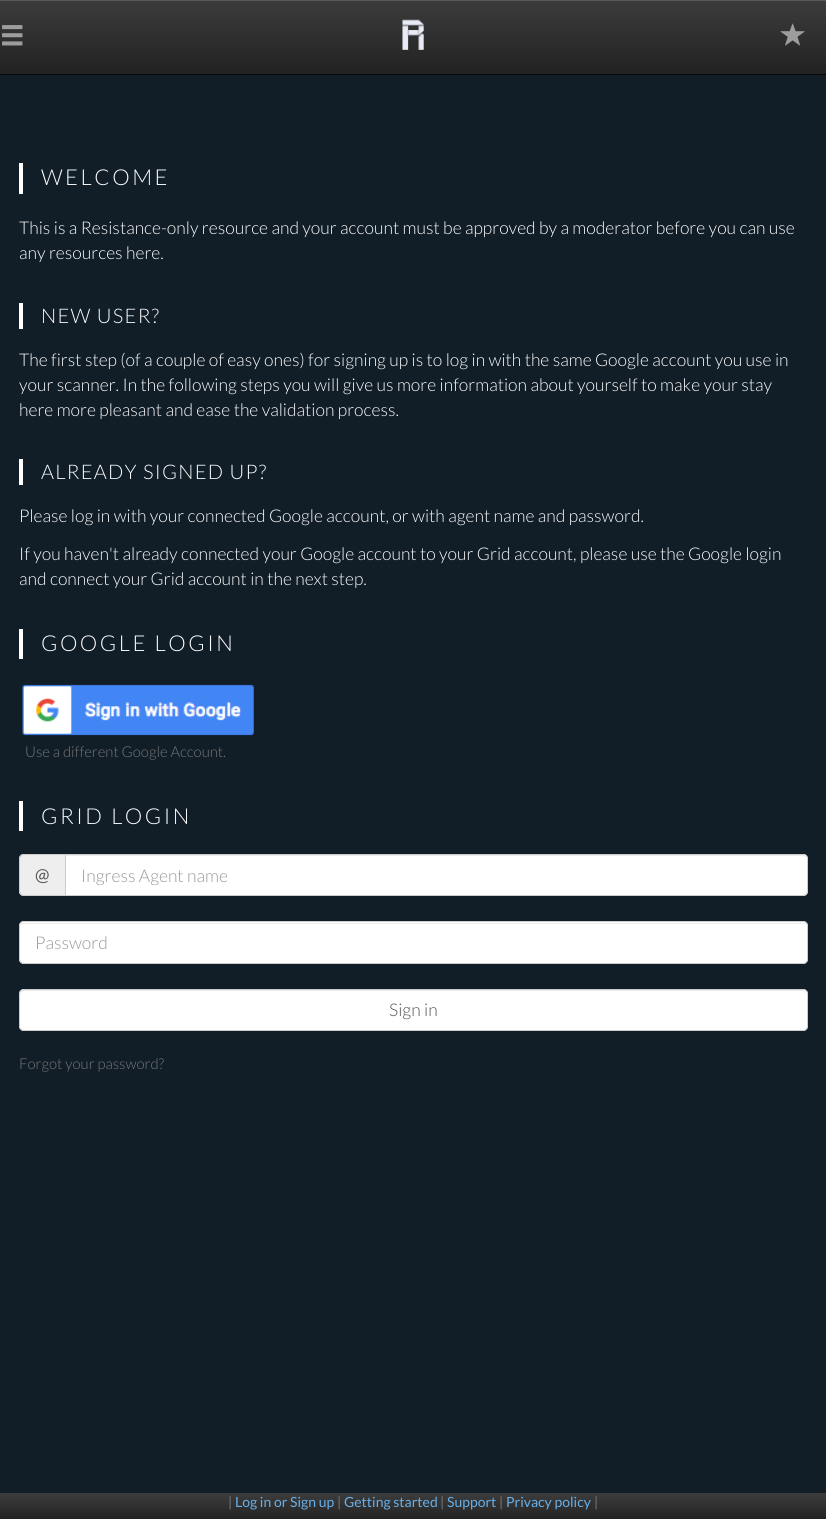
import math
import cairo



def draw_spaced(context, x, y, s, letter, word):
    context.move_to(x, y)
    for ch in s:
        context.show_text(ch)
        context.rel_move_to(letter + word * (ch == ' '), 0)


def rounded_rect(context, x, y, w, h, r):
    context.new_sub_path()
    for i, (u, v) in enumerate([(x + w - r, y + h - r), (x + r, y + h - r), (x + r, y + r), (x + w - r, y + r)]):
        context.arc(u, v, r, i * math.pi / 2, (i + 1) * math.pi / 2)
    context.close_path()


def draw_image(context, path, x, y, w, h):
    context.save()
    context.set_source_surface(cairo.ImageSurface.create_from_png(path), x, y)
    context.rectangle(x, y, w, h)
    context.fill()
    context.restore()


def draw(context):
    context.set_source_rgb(17 / 255, 29 / 255, 39 / 255)
    context.paint()
    gradient = cairo.LinearGradient(413, 0, 413, 74)
    gradient.add_color_stop_rgba(0, 60 / 255, 60 / 255, 60 / 255, 1)
    gradient.add_color_stop_rgba(1, 34 / 255, 34 / 255, 34 / 255, 1)
    context.set_source(gradient)
    context.rectangle(0, 1, 826, 73)
    context.fill()
    context.set_source_rgb(89 / 255, 89 / 255, 89 / 255)
    context.rectangle(0, 0, 826, 1)
    context.fill()
    context.set_source_rgb(8 / 255, 8 / 255, 8 / 255)
    context.rectangle(0, 74, 826, 1)
    context.fill()
    draw_image(context, "images/1.png", 402, 19, 22, 31)
    draw_image(context, "images/2.png", 2, 25, 21, 21)
    draw_image(context, "images/3.png", 780, 23, 25, 23)
    context.set_source_rgb(1, 1, 1)
    context.rectangle(19, 163, 4, 31)
    context.fill()
    context.rectangle(19, 303, 4, 26)
    context.fill()
    context.rectangle(19, 459, 4, 26)
    context.fill()
    context.rectangle(19, 629, 4, 30)
    context.fill()
    draw_image(context, "images/4.png", 22, 684, 232, 52)
    context.rectangle(19, 801, 4, 30)
    context.fill()
    context.set_source_rgb(238 / 255, 238 / 255, 238 / 255)
    context.new_path()
    context.move_to(24, 854)
    context.line_to(65, 854)
    context.line_to(65, 896)
    context.line_to(24, 896)
    context.curve_to(21, 896, 19, 894, 19, 891)
    context.line_to(19, 859)
    context.curve_to(19, 856, 21, 854, 24, 854)
    context.close_path()
    context.fill()
    context.set_source_rgb(204 / 255, 204 / 255, 204 / 255)
    context.set_fill_rule(cairo.FillRule.EVEN_ODD)
    context.new_path()
    context.move_to(24, 854)
    context.line_to(65, 854)
    context.line_to(65, 896)
    context.line_to(24, 896)
    context.curve_to(21, 896, 19, 894, 19, 891)
    context.line_to(19, 859)
    context.curve_to(19, 856, 21, 854, 24, 854)
    context.close_path()
    context.move_to(24, 855)
    context.line_to(65, 855)
    context.line_to(65, 895)
    context.line_to(24, 895)
    context.curve_to(22, 895, 20, 893, 20, 891)
    context.line_to(20, 859)
    context.curve_to(20, 857, 22, 855, 24, 855)
    context.close_path()
    context.fill()
    context.set_source_rgb(1, 1, 1)
    context.new_path()
    context.move_to(65, 854)
    context.line_to(803, 854)
    context.curve_to(806, 854, 808, 856, 808, 859)
    context.line_to(808, 891)
    context.curve_to(808, 894, 806, 896, 803, 896)
    context.line_to(65, 896)
    context.close_path()
    context.fill()
    context.set_source_rgb(236 / 255, 236 / 255, 236 / 255)
    context.set_fill_rule(cairo.FillRule.WINDING)
    context.new_path()
    context.move_to(66, 856)
    context.line_to(802, 856)
    context.curve_to(805, 856, 806, 858, 806, 860)
    context.line_to(806, 859)
    context.curve_to(806, 857, 804, 855, 802, 855)
    context.line_to(66, 855)
    context.close_path()
    context.fill()
    context.new_path()
    context.move_to(65.5, 854.5)
    context.line_to(803, 854.5)
    context.curve_to(805.5, 854.5, 807.5, 856.5, 807.5, 859)
    context.line_to(807.5, 891)
    context.curve_to(807.5, 893.5, 805.5, 895.5, 803, 895.5)
    context.line_to(65.5, 895.5)
    context.close_path()
    context.set_source_rgb(204 / 255, 204 / 255, 204 / 255)
    context.set_line_width(1)
    context.stroke()
    context.set_source_rgb(1, 1, 1)
    rounded_rect(context, 19, 921, 789, 43, 5)
    context.fill()
    context.set_source_rgb(236 / 255, 236 / 255, 236 / 255)
    context.new_path()
    context.move_to(24, 924)
    context.line_to(802, 924)
    context.curve_to(805, 924, 806, 925, 806, 928)
    context.line_to(806, 927)
    context.curve_to(806, 925, 804, 923, 802, 923)
    context.line_to(24, 923)
    context.curve_to(22, 923, 20, 925, 20, 927)
    context.line_to(20, 928)
    context.curve_to(20, 925, 22, 924, 24, 924)
    context.close_path()
    context.fill()
    rounded_rect(context, 19.5, 921.5, 788, 42, 4.5)
    context.set_source_rgb(204 / 255, 204 / 255, 204 / 255)
    context.stroke()
    context.set_source_rgb(1, 1, 1)
    rounded_rect(context, 19, 989, 789, 42, 5)
    context.fill()
    context.set_source_rgb(236 / 255, 236 / 255, 236 / 255)
    context.new_path()
    context.move_to(24, 991)
    context.line_to(802, 991)
    context.curve_to(805, 991, 806, 993, 806, 995)
    context.line_to(806, 994)
    context.curve_to(806, 992, 804, 990, 802, 990)
    context.line_to(24, 990)
    context.curve_to(22, 990, 20, 992, 20, 994)
    context.line_to(20, 995)
    context.curve_to(20, 993, 22, 991, 24, 991)
    context.close_path()
    context.fill()
    rounded_rect(context, 19.5, 989.5, 788, 41, 4.5)
    context.set_source_rgb(204 / 255, 204 / 255, 204 / 255)
    context.stroke()
    gradient = cairo.LinearGradient(413, 1493, 413, 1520)
    gradient.add_color_stop_rgba(0, 60 / 255, 60 / 255, 60 / 255, 1)
    gradient.add_color_stop_rgba(1, 34 / 255, 34 / 255, 34 / 255, 1)
    context.set_source(gradient)
    context.rectangle(0, 1493, 826, 26)
    context.fill()
    context.select_font_face("Lato Light")
    context.set_font_size(21.9)
    context.set_source_rgb(251 / 255, 251 / 255, 251 / 255)
    draw_spaced(context, 41, 185, "WELCOME", 2.5, 0)
    context.set_font_size(17.5)
    context.move_to(19, 234)
    context.show_text("This is a Resistance-only resource and your account must be approved by a moderator before you can use")
    context.move_to(19, 259)
    context.show_text("any resources here.")
    context.set_font_size(20.1)
    draw_spaced(context, 41, 323, "NEW USER?", 1.25, 0)
    context.set_font_size(17.5)
    context.move_to(19, 366)
    context.show_text("The first step (of a couple of easy ones) for signing up is to log in with the same Google account you use in")
    context.move_to(19, 391)
    context.show_text("your scanner. In the following steps you will give us more information about yourself to make your stay")
    context.move_to(19, 416)
    context.show_text("here more pleasant and ease the validation process.")
    context.set_font_size(20.1)
    draw_spaced(context, 41, 479, "ALREADY SIGNED UP?", 1.25, 0)
    context.set_font_size(17.5)
    context.move_to(19, 522)
    context.show_text("Please log in with your connected Google account, or with agent name and password.")
    context.move_to(19, 560)
    context.show_text("If you haven't already connected your Google account to your Grid account, please use the Google login")
    context.move_to(19, 585)
    context.show_text("and connect your Grid account in the next step.")
    context.set_font_size(21.9)
    draw_spaced(context, 41, 651, "GOOGLE LOGIN", 2.5, 0)
    context.set_font_size(14.9)
    context.set_source_rgb(119 / 255, 119 / 255, 119 / 255)
    context.move_to(25, 757)
    context.show_text("Use a different Google Account.")
    context.set_font_size(21.9)
    context.set_source_rgb(251 / 255, 251 / 255, 251 / 255)
    draw_spaced(context, 41, 824, "GRID LOGIN", 2.5, 0)
    context.select_font_face("Lato")
    context.set_font_size(17.5)
    context.set_source_rgb(85 / 255, 85 / 255, 85 / 255)
    context.move_to(35, 881)
    context.show_text("@")
    context.save()
    context.rectangle(81, 864, 710, 21)
    context.clip()
    context.select_font_face("Lato Light")
    context.set_source_rgb(153 / 255, 153 / 255, 153 / 255)
    context.move_to(81, 882)
    context.show_text("Ingress Agent name")
    context.restore()
    context.select_font_face("Lato Light")
    context.set_source_rgb(153 / 255, 153 / 255, 153 / 255)
    context.move_to(35, 949)
    context.show_text("Password")
    context.set_source_rgb(85 / 255, 85 / 255, 85 / 255)
    context.move_to(389, 1016)
    context.show_text("Sign in")
    context.set_font_size(14.9)
    context.set_source_rgb(119 / 255, 119 / 255, 119 / 255)
    context.move_to(19, 1069)
    context.show_text("Forgot your password?")
    context.select_font_face("Lato")
    context.set_font_size(14)
    context.move_to(228, 1507)
    context.show_text("|")
    context.set_source_rgb(102 / 255, 175 / 255, 233 / 255)
    context.move_to(235, 1507)
    context.show_text("Log in or Sign up")
    context.set_source_rgb(119 / 255, 119 / 255, 119 / 255)
    context.move_to(337, 1507)
    context.show_text("|")
    context.set_source_rgb(102 / 255, 175 / 255, 233 / 255)
    context.move_to(344, 1507)
    context.show_text("Getting started")
    context.set_source_rgb(119 / 255, 119 / 255, 119 / 255)
    context.move_to(440, 1507)
    context.show_text("|")
    context.set_source_rgb(102 / 255, 175 / 255, 233 / 255)
    context.move_to(447, 1507)
    context.show_text("Support")
    context.set_source_rgb(119 / 255, 119 / 255, 119 / 255)
    context.move_to(499, 1507)
    context.show_text("|")
    context.set_source_rgb(102 / 255, 175 / 255, 233 / 255)
    context.move_to(506, 1507)
    context.show_text("Privacy policy")
    context.set_source_rgb(119 / 255, 119 / 255, 119 / 255)
    context.move_to(594, 1507)
    context.show_text("|")


surface = cairo.ImageSurface(cairo.Format.RGB24, 826, 1519)
context = cairo.Context(surface)
options = cairo.FontOptions()
options.set_hint_metrics(cairo.HintMetrics.OFF)
options.set_hint_style(cairo.HintStyle.NONE)
context.set_font_options(options)
context.set_miter_limit(4)
draw(context)
surface.write_to_png("out.png")
